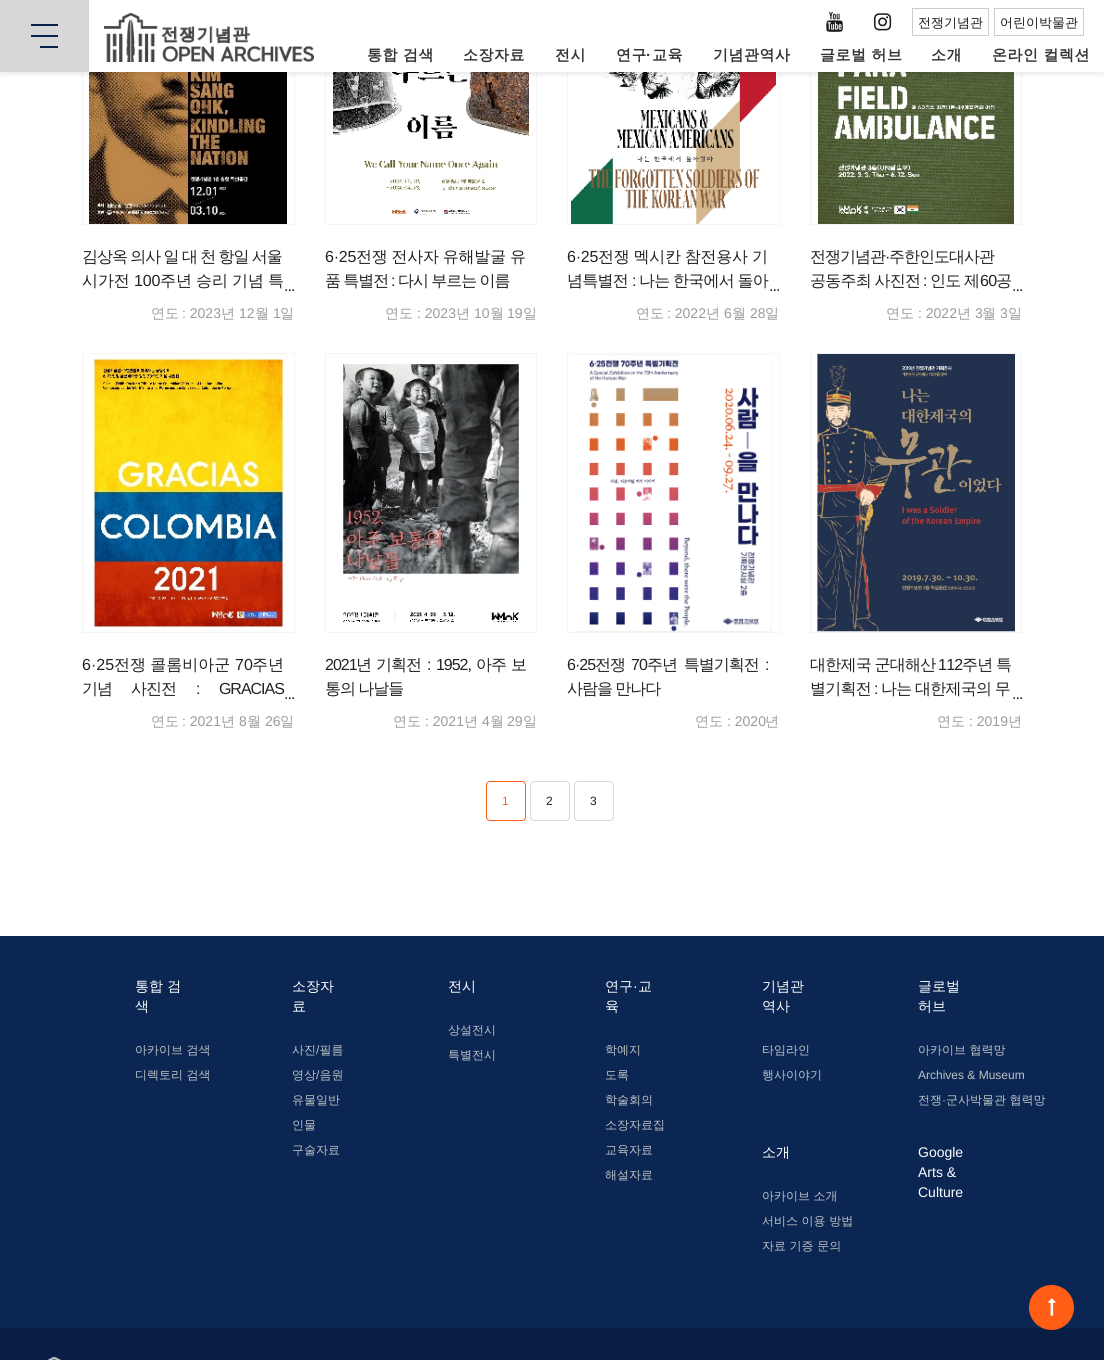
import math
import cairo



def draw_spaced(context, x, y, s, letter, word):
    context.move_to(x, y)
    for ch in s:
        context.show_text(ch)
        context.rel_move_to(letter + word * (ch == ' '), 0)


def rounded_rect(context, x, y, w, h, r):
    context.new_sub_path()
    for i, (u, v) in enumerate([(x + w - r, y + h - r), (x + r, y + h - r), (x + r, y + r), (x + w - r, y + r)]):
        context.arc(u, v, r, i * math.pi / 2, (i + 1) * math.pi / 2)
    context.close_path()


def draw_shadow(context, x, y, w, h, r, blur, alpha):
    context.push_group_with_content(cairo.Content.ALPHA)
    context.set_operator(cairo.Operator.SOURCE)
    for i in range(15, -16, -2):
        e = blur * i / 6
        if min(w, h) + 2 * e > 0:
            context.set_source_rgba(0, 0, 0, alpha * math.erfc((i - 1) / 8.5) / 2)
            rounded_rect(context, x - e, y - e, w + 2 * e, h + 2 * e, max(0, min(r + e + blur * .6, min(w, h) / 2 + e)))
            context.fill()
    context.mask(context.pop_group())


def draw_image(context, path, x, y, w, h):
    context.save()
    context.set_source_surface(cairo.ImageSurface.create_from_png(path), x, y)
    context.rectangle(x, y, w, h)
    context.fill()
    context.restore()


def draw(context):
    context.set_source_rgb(1, 1, 1)
    context.paint()
    draw_image(context, "images/4.png", 89, 72, 198, 152)
    context.rectangle(82.5, -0.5, 212, 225)
    context.set_source_rgb(245 / 255, 245 / 255, 245 / 255)
    context.set_line_width(1)
    context.stroke()
    draw_image(context, "images/5.png", 333, 72, 196, 144)
    context.rectangle(325.5, -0.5, 211, 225)
    context.stroke()
    draw_image(context, "images/6.png", 571, 72, 205, 152)
    context.rectangle(567.5, -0.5, 212, 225)
    context.stroke()
    draw_image(context, "images/7.png", 818, 72, 196, 152)
    context.rectangle(810.5, -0.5, 211, 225)
    context.stroke()
    context.set_source_rgb(0, 0, 0)
    draw_shadow(context, 0, 3, 1104, 72, 0, 2, 0.07)
    context.set_source_rgb(1, 1, 1)
    context.rectangle(89, 0, 1015, 72)
    context.fill()
    context.set_source_rgb(230 / 255, 230 / 255, 230 / 255)
    context.rectangle(0, 0, 89, 72)
    context.fill()
    context.set_source_rgb(11 / 255, 38 / 255, 83 / 255)
    context.rectangle(31, 24, 27, 2)
    context.fill()
    context.rectangle(31, 35, 27, 2)
    context.fill()
    context.rectangle(40, 46, 18, 2)
    context.fill()
    context.set_source_rgba(0, 0, 0, 0.07)
    context.rectangle(0, 0, 89, 72)
    context.fill()
    draw_image(context, "images/1.png", 104, 12, 210, 50)
    draw_image(context, "images/2.png", 826, 11, 17, 21)
    draw_image(context, "images/3.png", 874, 13, 18, 18)
    context.rectangle(912.5, 8.5, 76, 27)
    context.set_source_rgb(204 / 255, 204 / 255, 204 / 255)
    context.stroke()
    context.rectangle(994.5, 8.5, 89, 27)
    context.stroke()
    draw_image(context, "images/8.png", 93, 358, 192, 270)
    context.rectangle(82.5, 353.5, 212, 279)
    context.set_source_rgb(245 / 255, 245 / 255, 245 / 255)
    context.stroke()
    draw_image(context, "images/9.png", 343, 364, 176, 258)
    context.rectangle(325.5, 353.5, 211, 279)
    context.stroke()
    draw_image(context, "images/10.png", 575, 354, 197, 278)
    context.rectangle(567.5, 353.5, 212, 279)
    context.stroke()
    draw_image(context, "images/11.png", 817, 354, 198, 278)
    context.rectangle(810.5, 353.5, 211, 279)
    context.stroke()
    rounded_rect(context, 486.5, 781.5, 39, 39, 3.5)
    context.set_source_rgb(1, 94 / 255, 20 / 255)
    context.stroke()
    rounded_rect(context, 530.5, 781.5, 39, 39, 3.5)
    context.set_source_rgb(217 / 255, 217 / 255, 217 / 255)
    context.stroke()
    rounded_rect(context, 574.5, 781.5, 39, 39, 3.5)
    context.stroke()
    context.set_source_rgb(11 / 255, 38 / 255, 83 / 255)
    context.rectangle(0, 936, 1104, 392)
    context.fill()
    context.set_source_rgb(8 / 255, 30 / 255, 69 / 255)
    context.rectangle(0, 1328, 1104, 32)
    context.fill()
    context.set_source_rgb(1, 94 / 255, 20 / 255)
    context.arc(1051.5, 1307.5, 22.5, 0, 2 * math.pi)
    context.fill()
    draw_image(context, "images/12.png", 1048, 1298, 8, 18)
    draw_image(context, "images/13.png", 46, 1356, 16, 4)
    context.select_font_face("WenQuanYi Zen Hei Medium")
    context.set_font_size(13)
    context.set_source_rgb(27 / 255, 26 / 255, 26 / 255)
    context.move_to(918, 27)
    context.show_text("전쟁기념관")
    context.move_to(1000, 27)
    context.show_text("어린이박물관")
    context.select_font_face("WenQuanYi Zen Hei", cairo.FontSlant.NORMAL, cairo.FontWeight.BOLD)
    context.set_font_size(15)
    context.set_source_rgb(51 / 255, 51 / 255, 51 / 255)
    draw_spaced(context, 367, 60, "통합 검색", 0.5, 0)
    draw_spaced(context, 463, 60, "소장자료", 0.5, 0)
    draw_spaced(context, 555, 60, "전시", 0.5, 0)
    draw_spaced(context, 616, 60, "연구", 0.5, 0)
    context.select_font_face("Liberation Sans", cairo.FontSlant.NORMAL, cairo.FontWeight.BOLD)
    draw_spaced(context, 646, 60, "·", 0.5, 0)
    context.select_font_face("WenQuanYi Zen Hei", cairo.FontSlant.NORMAL, cairo.FontWeight.BOLD)
    draw_spaced(context, 652, 60, "교육", 0.5, 0)
    draw_spaced(context, 713, 60, "기념관역사", 0.5, 0)
    draw_spaced(context, 820, 60, "글로벌 허브", 0.5, 0)
    draw_spaced(context, 931, 60, "소개", 0.5, 0)
    draw_spaced(context, 992, 60, "온라인 컬렉션", 0.5, 0)
    context.select_font_face("WenQuanYi Zen Hei Medium")
    context.set_font_size(16)
    context.set_source_rgb(34 / 255, 34 / 255, 34 / 255)
    draw_spaced(context, 82, 262, "김상옥 의사 일 대 천 항일 서울", -1, -0.5)
    draw_spaced(context, 82, 286, "시가전", -0.1, 0)
    context.select_font_face("Liberation Sans")
    draw_spaced(context, 134, 286, "100", -0.1, 0)
    context.select_font_face("WenQuanYi Zen Hei Medium")
    draw_spaced(context, 160, 286, "주년 승리 기념 특", -0.1, -0.5)
    context.select_font_face("Liberation Sans")
    draw_spaced(context, 284, 291, "...", -1, 0)
    context.select_font_face("WenQuanYi Zen Hei Medium")
    context.set_font_size(14)
    context.set_source_rgb(155 / 255, 155 / 255, 155 / 255)
    context.move_to(151, 318)
    context.show_text("연도")
    context.select_font_face("Liberation Sans")
    context.move_to(182, 318)
    context.show_text(": 2023")
    context.select_font_face("WenQuanYi Zen Hei Medium")
    context.move_to(221, 318)
    context.show_text("년")
    context.select_font_face("Liberation Sans")
    context.move_to(239, 318)
    context.show_text("12")
    context.select_font_face("WenQuanYi Zen Hei Medium")
    context.move_to(255, 318)
    context.show_text("월")
    context.select_font_face("Liberation Sans")
    context.move_to(273, 318)
    context.show_text("1")
    context.select_font_face("WenQuanYi Zen Hei Medium")
    context.move_to(280, 318)
    context.show_text("일")
    context.select_font_face("Liberation Sans")
    context.set_font_size(16)
    context.set_source_rgb(34 / 255, 34 / 255, 34 / 255)
    draw_spaced(context, 325, 262, "6·25", -0.25, 0)
    context.select_font_face("WenQuanYi Zen Hei Medium")
    draw_spaced(context, 356, 262, "전쟁 전사자 유해발굴 유", -0.25, -0.5)
    draw_spaced(context, 325, 286, "품 특별전", -1, -0.5)
    context.select_font_face("Liberation Sans")
    draw_spaced(context, 391, 286, ":", -1, 0)
    context.select_font_face("WenQuanYi Zen Hei Medium")
    draw_spaced(context, 398, 286, "다시 부르는 이름", -1, -0.5)
    context.set_font_size(14)
    context.set_source_rgb(155 / 255, 155 / 255, 155 / 255)
    context.move_to(385, 318)
    context.show_text("연도")
    context.select_font_face("Liberation Sans")
    context.move_to(417, 318)
    context.show_text(": 2023")
    context.select_font_face("WenQuanYi Zen Hei Medium")
    context.move_to(456, 318)
    context.show_text("년")
    context.select_font_face("Liberation Sans")
    context.move_to(474, 318)
    context.show_text("10")
    context.select_font_face("WenQuanYi Zen Hei Medium")
    context.move_to(490, 318)
    context.show_text("월")
    context.select_font_face("Liberation Sans")
    context.move_to(507, 318)
    context.show_text("19")
    context.select_font_face("WenQuanYi Zen Hei Medium")
    context.move_to(523, 318)
    context.show_text("일")
    context.select_font_face("Liberation Sans")
    context.set_font_size(16)
    context.set_source_rgb(34 / 255, 34 / 255, 34 / 255)
    draw_spaced(context, 567, 262, "6·25", -0.25, 0)
    context.select_font_face("WenQuanYi Zen Hei Medium")
    draw_spaced(context, 598, 262, "전쟁 멕시칸 참전용사 기", -0.25, -0.5)
    draw_spaced(context, 567, 286, "념특별전", -0.75, 0)
    context.select_font_face("Liberation Sans")
    draw_spaced(context, 632, 286, ":", -0.75, 0)
    context.select_font_face("WenQuanYi Zen Hei Medium")
    draw_spaced(context, 639, 286, "나는 한국에서 돌아", -0.75, -0.5)
    context.select_font_face("Liberation Sans")
    draw_spaced(context, 769, 291, "...", -1, 0)
    context.select_font_face("WenQuanYi Zen Hei Medium")
    context.set_font_size(14)
    context.set_source_rgb(155 / 255, 155 / 255, 155 / 255)
    context.move_to(636, 318)
    context.show_text("연도")
    context.select_font_face("Liberation Sans")
    context.move_to(667, 318)
    context.show_text(": 2022")
    context.select_font_face("WenQuanYi Zen Hei Medium")
    context.move_to(706, 318)
    context.show_text("년")
    context.select_font_face("Liberation Sans")
    context.move_to(724, 318)
    context.show_text("6")
    context.select_font_face("WenQuanYi Zen Hei Medium")
    context.move_to(732, 318)
    context.show_text("월")
    context.select_font_face("Liberation Sans")
    context.move_to(750, 318)
    context.show_text("28")
    context.select_font_face("WenQuanYi Zen Hei Medium")
    context.move_to(765, 318)
    context.show_text("일")
    context.set_font_size(16)
    context.set_source_rgb(34 / 255, 34 / 255, 34 / 255)
    draw_spaced(context, 810, 262, "전쟁기념관", -1, 0)
    context.select_font_face("Liberation Sans")
    draw_spaced(context, 885, 262, "·", -1, 0)
    context.select_font_face("WenQuanYi Zen Hei Medium")
    draw_spaced(context, 889, 262, "주한인도대사관", -1, 0)
    draw_spaced(context, 810, 286, "공동주최 사진전", -0.75, -0.5)
    context.select_font_face("Liberation Sans")
    draw_spaced(context, 923, 286, ":", -0.75, 0)
    context.select_font_face("WenQuanYi Zen Hei Medium")
    draw_spaced(context, 930, 286, "인도 제", -0.75, -0.5)
    context.select_font_face("Liberation Sans")
    draw_spaced(context, 980, 286, "60", -0.75, 0)
    context.select_font_face("WenQuanYi Zen Hei Medium")
    draw_spaced(context, 996, 286, "공", -0.75, 0)
    context.select_font_face("Liberation Sans")
    draw_spaced(context, 1012, 291, "...", -1, 0)
    context.select_font_face("WenQuanYi Zen Hei Medium")
    context.set_font_size(14)
    context.set_source_rgb(155 / 255, 155 / 255, 155 / 255)
    context.move_to(886, 318)
    context.show_text("연도")
    context.select_font_face("Liberation Sans")
    context.move_to(918, 318)
    context.show_text(": 2022")
    context.select_font_face("WenQuanYi Zen Hei Medium")
    context.move_to(957, 318)
    context.show_text("년")
    context.select_font_face("Liberation Sans")
    context.move_to(975, 318)
    context.show_text("3")
    context.select_font_face("WenQuanYi Zen Hei Medium")
    context.move_to(982, 318)
    context.show_text("월")
    context.select_font_face("Liberation Sans")
    context.move_to(1000, 318)
    context.show_text("3")
    context.select_font_face("WenQuanYi Zen Hei Medium")
    context.move_to(1008, 318)
    context.show_text("일")
    context.select_font_face("Liberation Sans")
    context.set_font_size(16)
    context.set_source_rgb(34 / 255, 34 / 255, 34 / 255)
    context.move_to(82, 670)
    context.show_text("6·25")
    context.select_font_face("WenQuanYi Zen Hei Medium")
    draw_spaced(context, 114, 670, "전쟁 콜롬비아군", 0, -0.5)
    context.select_font_face("Liberation Sans")
    context.move_to(235, 670)
    context.show_text("70")
    context.select_font_face("WenQuanYi Zen Hei Medium")
    context.move_to(252, 670)
    context.show_text("주년")
    draw_spaced(context, 82, 694, "기념", -1, 0)
    draw_spaced(context, 131, 694, "사진전", -1, 0)
    context.select_font_face("Liberation Sans")
    draw_spaced(context, 196, 694, ": GRACIAS", -1, 16)
    draw_spaced(context, 284, 699, "...", -1, 0)
    context.select_font_face("WenQuanYi Zen Hei Medium")
    context.set_font_size(14)
    context.set_source_rgb(155 / 255, 155 / 255, 155 / 255)
    context.move_to(151, 726)
    context.show_text("연도")
    context.select_font_face("Liberation Sans")
    context.move_to(182, 726)
    context.show_text(": 2021")
    context.select_font_face("WenQuanYi Zen Hei Medium")
    context.move_to(221, 726)
    context.show_text("년")
    context.select_font_face("Liberation Sans")
    context.move_to(239, 726)
    context.show_text("8")
    context.select_font_face("WenQuanYi Zen Hei Medium")
    context.move_to(247, 726)
    context.show_text("월")
    context.select_font_face("Liberation Sans")
    context.move_to(265, 726)
    context.show_text("26")
    context.select_font_face("WenQuanYi Zen Hei Medium")
    context.move_to(280, 726)
    context.show_text("일")
    context.select_font_face("Liberation Sans")
    context.set_font_size(16)
    context.set_source_rgb(34 / 255, 34 / 255, 34 / 255)
    draw_spaced(context, 325, 670, "2021", -1, 0)
    context.select_font_face("WenQuanYi Zen Hei Medium")
    draw_spaced(context, 356, 670, "년", -1, 0)
    draw_spaced(context, 376, 670, "기획전", -1, 0)
    context.select_font_face("Liberation Sans")
    draw_spaced(context, 427, 670, ": 1952,", -1, 2)
    context.select_font_face("WenQuanYi Zen Hei Medium")
    draw_spaced(context, 476, 670, "아주", -1, 0)
    draw_spaced(context, 511, 670, "보", -1, 0)
    draw_spaced(context, 325, 694, "통의 나날들", -1, -0.5)
    context.set_font_size(14)
    context.set_source_rgb(155 / 255, 155 / 255, 155 / 255)
    context.move_to(393, 726)
    context.show_text("연도")
    context.select_font_face("Liberation Sans")
    context.move_to(425, 726)
    context.show_text(": 2021")
    context.select_font_face("WenQuanYi Zen Hei Medium")
    context.move_to(464, 726)
    context.show_text("년")
    context.select_font_face("Liberation Sans")
    context.move_to(482, 726)
    context.show_text("4")
    context.select_font_face("WenQuanYi Zen Hei Medium")
    context.move_to(490, 726)
    context.show_text("월")
    context.select_font_face("Liberation Sans")
    context.move_to(507, 726)
    context.show_text("29")
    context.select_font_face("WenQuanYi Zen Hei Medium")
    context.move_to(523, 726)
    context.show_text("일")
    context.select_font_face("Liberation Sans")
    context.set_font_size(16)
    context.set_source_rgb(34 / 255, 34 / 255, 34 / 255)
    draw_spaced(context, 567, 670, "6·25", -1, 0)
    context.select_font_face("WenQuanYi Zen Hei Medium")
    draw_spaced(context, 595, 670, "전쟁", -1, 0)
    context.select_font_face("Liberation Sans")
    draw_spaced(context, 631, 670, "70", -1, 0)
    context.select_font_face("WenQuanYi Zen Hei Medium")
    draw_spaced(context, 647, 670, "주년 특별기획전", -1, 3)
    context.select_font_face("Liberation Sans")
    draw_spaced(context, 765, 670, ":", -1, 0)
    context.select_font_face("WenQuanYi Zen Hei Medium")
    draw_spaced(context, 567, 694, "사람을 만나다", -1, -0.5)
    context.set_font_size(14)
    context.set_source_rgb(155 / 255, 155 / 255, 155 / 255)
    context.move_to(695, 726)
    context.show_text("연도")
    context.select_font_face("Liberation Sans")
    context.move_to(727, 726)
    context.show_text(": 2020")
    context.select_font_face("WenQuanYi Zen Hei Medium")
    context.move_to(765, 726)
    context.show_text("년")
    context.set_font_size(16)
    context.set_source_rgb(34 / 255, 34 / 255, 34 / 255)
    draw_spaced(context, 810, 670, "대한제국 군대해산", -0.75, -0.5)
    context.select_font_face("Liberation Sans")
    draw_spaced(context, 938, 670, "112", -0.75, 0)
    context.select_font_face("WenQuanYi Zen Hei Medium")
    draw_spaced(context, 962, 670, "주년 특", -0.75, -0.5)
    draw_spaced(context, 810, 694, "별기획전", -0.75, 0)
    context.select_font_face("Liberation Sans")
    draw_spaced(context, 874, 694, ":", -0.75, 0)
    context.select_font_face("WenQuanYi Zen Hei Medium")
    draw_spaced(context, 881, 694, "나는 대한제국의 무", -0.75, -0.5)
    context.select_font_face("Liberation Sans")
    draw_spaced(context, 1012, 699, "...", -1, 0)
    context.select_font_face("WenQuanYi Zen Hei Medium")
    context.set_font_size(14)
    context.set_source_rgb(155 / 255, 155 / 255, 155 / 255)
    context.move_to(937, 726)
    context.show_text("연도")
    context.select_font_face("Liberation Sans")
    context.move_to(969, 726)
    context.show_text(": 2019")
    context.select_font_face("WenQuanYi Zen Hei Medium")
    context.move_to(1008, 726)
    context.show_text("년")
    context.select_font_face("Liberation Sans")
    context.set_font_size(12)
    context.set_source_rgb(1, 94 / 255, 20 / 255)
    context.move_to(502, 805)
    context.show_text("1")
    context.set_source_rgb(34 / 255, 34 / 255, 34 / 255)
    context.move_to(546, 805)
    context.show_text("2")
    context.move_to(590, 805)
    context.show_text("3")
    context.select_font_face("WenQuanYi Zen Hei Medium")
    context.set_font_size(14)
    context.set_source_rgb(1, 1, 1)
    context.move_to(135, 991)
    context.show_text("통합 검")
    context.move_to(135, 1011)
    context.show_text("색")
    context.set_font_size(12)
    context.set_source_rgb(189 / 255, 195 / 255, 197 / 255)
    context.move_to(135, 1054)
    context.show_text("아카이브 검색")
    context.move_to(135, 1079)
    context.show_text("디렉토리 검색")
    context.set_font_size(14)
    context.set_source_rgb(1, 1, 1)
    context.move_to(292, 991)
    context.show_text("소장자")
    context.move_to(292, 1011)
    context.show_text("료")
    context.set_font_size(12)
    context.set_source_rgb(189 / 255, 195 / 255, 197 / 255)
    context.move_to(292, 1054)
    context.show_text("사진 필름")
    context.select_font_face("Liberation Sans")
    context.move_to(316, 1054)
    context.show_text("/")
    context.select_font_face("WenQuanYi Zen Hei Medium")
    context.move_to(292, 1079)
    context.show_text("영상 음원")
    context.select_font_face("Liberation Sans")
    context.move_to(316, 1079)
    context.show_text("/")
    context.select_font_face("WenQuanYi Zen Hei Medium")
    context.move_to(292, 1104)
    context.show_text("유물일반")
    context.move_to(292, 1129)
    context.show_text("인물")
    context.move_to(292, 1154)
    context.show_text("구술자료")
    context.set_font_size(14)
    context.set_source_rgb(1, 1, 1)
    context.move_to(448, 991)
    context.show_text("전시")
    context.set_font_size(12)
    context.set_source_rgb(189 / 255, 195 / 255, 197 / 255)
    context.move_to(448, 1034)
    context.show_text("상설전시")
    context.move_to(448, 1059)
    context.show_text("특별전시")
    context.set_font_size(14)
    context.set_source_rgb(1, 1, 1)
    context.move_to(605, 991)
    context.show_text("연구")
    context.select_font_face("Liberation Sans")
    context.move_to(633, 991)
    context.show_text("·")
    context.select_font_face("WenQuanYi Zen Hei Medium")
    context.move_to(638, 991)
    context.show_text("교")
    context.move_to(605, 1011)
    context.show_text("육")
    context.set_font_size(12)
    context.set_source_rgb(189 / 255, 195 / 255, 197 / 255)
    context.move_to(605, 1054)
    context.show_text("학예지")
    context.move_to(605, 1079)
    context.show_text("도록")
    context.move_to(605, 1104)
    context.show_text("학술회의")
    context.move_to(605, 1129)
    context.show_text("소장자료집")
    context.move_to(605, 1154)
    context.show_text("교육자료")
    context.move_to(605, 1179)
    context.show_text("해설자료")
    context.set_font_size(14)
    context.set_source_rgb(1, 1, 1)
    context.move_to(762, 991)
    context.show_text("기념관")
    context.move_to(762, 1011)
    context.show_text("역사")
    context.set_font_size(12)
    context.set_source_rgb(189 / 255, 195 / 255, 197 / 255)
    context.move_to(762, 1054)
    context.show_text("타임라인")
    context.move_to(762, 1079)
    context.show_text("행사이야기")
    context.set_font_size(14)
    context.set_source_rgb(1, 1, 1)
    context.move_to(918, 991)
    context.show_text("글로벌")
    context.move_to(918, 1011)
    context.show_text("허브")
    context.set_font_size(12)
    context.set_source_rgb(189 / 255, 195 / 255, 197 / 255)
    context.move_to(918, 1054)
    context.show_text("아카이브 협력망")
    context.select_font_face("Liberation Sans")
    context.move_to(918, 1079)
    context.show_text("Archives & Museum")
    context.select_font_face("WenQuanYi Zen Hei Medium")
    context.move_to(918, 1104)
    context.show_text("전쟁")
    context.select_font_face("Liberation Sans")
    context.move_to(942, 1104)
    context.show_text("·")
    context.select_font_face("WenQuanYi Zen Hei Medium")
    context.move_to(946, 1104)
    context.show_text("군사박물관 협력망")
    context.set_font_size(14)
    context.set_source_rgb(1, 1, 1)
    context.move_to(762, 1157)
    context.show_text("소개")
    context.set_font_size(12)
    context.set_source_rgb(189 / 255, 195 / 255, 197 / 255)
    context.move_to(762, 1200)
    context.show_text("아카이브 소개")
    context.move_to(762, 1225)
    context.show_text("서비스 이용 방법")
    context.move_to(762, 1250)
    context.show_text("자료 기증 문의")
    context.select_font_face("Liberation Sans")
    context.set_font_size(14)
    context.set_source_rgb(1, 1, 1)
    context.move_to(918, 1157)
    context.show_text("Google")
    context.move_to(918, 1177)
    context.show_text("Arts &")
    context.move_to(918, 1197)
    context.show_text("Culture")


surface = cairo.ImageSurface(cairo.Format.RGB24, 1104, 1360)
context = cairo.Context(surface)
options = cairo.FontOptions()
options.set_hint_metrics(cairo.HintMetrics.OFF)
options.set_hint_style(cairo.HintStyle.NONE)
context.set_font_options(options)
context.set_miter_limit(4)
draw(context)
surface.write_to_png("out.png")
